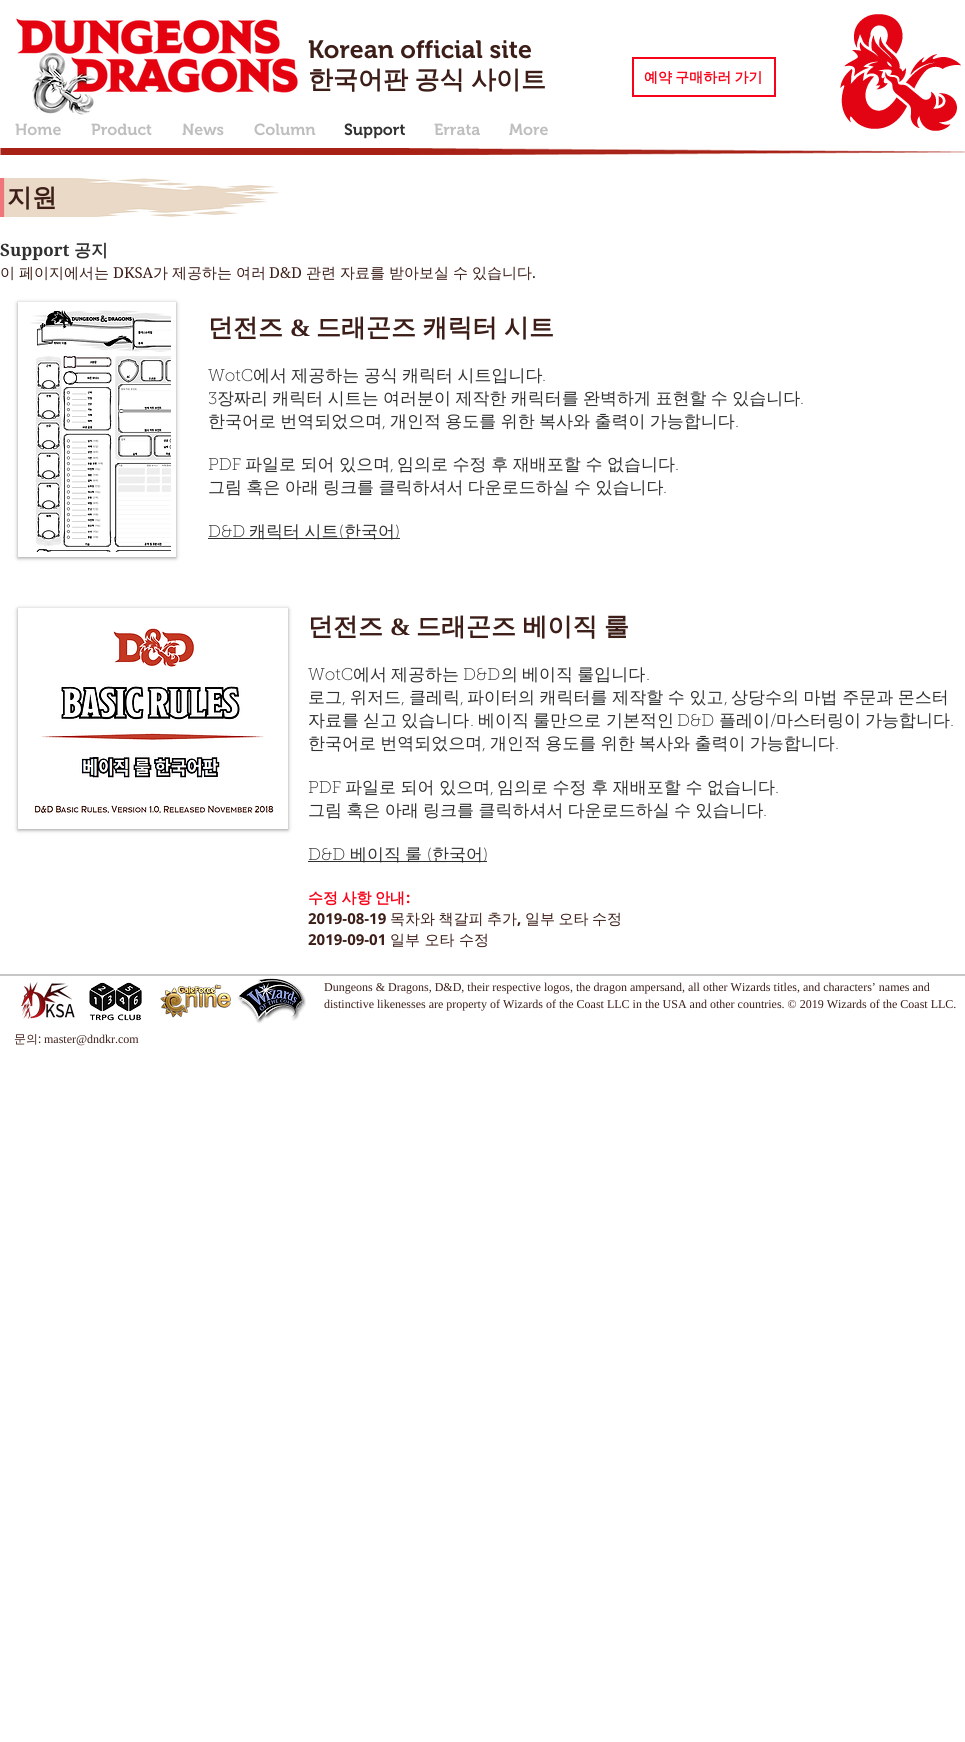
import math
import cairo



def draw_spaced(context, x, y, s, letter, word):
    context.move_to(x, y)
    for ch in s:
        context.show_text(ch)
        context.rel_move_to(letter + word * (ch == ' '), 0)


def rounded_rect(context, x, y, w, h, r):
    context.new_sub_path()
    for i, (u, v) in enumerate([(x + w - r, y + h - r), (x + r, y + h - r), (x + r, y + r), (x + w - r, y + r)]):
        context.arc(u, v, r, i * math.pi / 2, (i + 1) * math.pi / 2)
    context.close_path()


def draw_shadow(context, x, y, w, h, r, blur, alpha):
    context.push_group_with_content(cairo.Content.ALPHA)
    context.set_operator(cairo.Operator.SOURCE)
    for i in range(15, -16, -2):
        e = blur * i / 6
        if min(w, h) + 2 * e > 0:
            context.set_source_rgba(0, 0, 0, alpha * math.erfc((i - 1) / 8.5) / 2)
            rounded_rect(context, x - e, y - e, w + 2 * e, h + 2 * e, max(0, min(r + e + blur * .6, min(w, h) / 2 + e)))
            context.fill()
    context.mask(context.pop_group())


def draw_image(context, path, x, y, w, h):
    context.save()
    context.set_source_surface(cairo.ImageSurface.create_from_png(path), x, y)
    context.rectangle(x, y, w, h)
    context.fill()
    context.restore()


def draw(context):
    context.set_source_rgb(1, 1, 1)
    context.paint()
    draw_image(context, "images/1.png", 16, 18, 282, 97)
    context.rectangle(633, 58, 142, 38)
    context.set_source_rgb(246 / 255, 4 / 255, 25 / 255)
    context.stroke()
    draw_image(context, "images/2.png", 840, 14, 121, 117)
    draw_image(context, "images/3.png", 0, 148, 965, 7)
    draw_image(context, "images/4.png", 0, 178, 279, 39)
    context.save()
    context.set_fill_rule(cairo.FillRule.EVEN_ODD)
    context.new_path()
    context.move_to(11, 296)
    context.line_to(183, 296)
    context.line_to(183, 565)
    context.line_to(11, 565)
    context.close_path()
    context.move_to(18, 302)
    context.line_to(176, 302)
    context.line_to(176, 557)
    context.line_to(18, 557)
    context.close_path()
    context.clip()
    context.set_source_rgb(0, 0, 0)
    draw_shadow(context, 18, 303, 158, 255, 0, 2, 0.4)
    context.restore()
    draw_image(context, "images/5.png", 30, 310, 141, 242)
    context.set_source_rgb(48 / 255, 48 / 255, 48 / 255)
    context.rectangle(208, 538, 192, 1)
    context.fill()
    context.save()
    context.set_fill_rule(cairo.FillRule.EVEN_ODD)
    context.new_path()
    context.move_to(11, 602)
    context.line_to(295, 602)
    context.line_to(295, 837)
    context.line_to(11, 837)
    context.close_path()
    context.move_to(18, 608)
    context.line_to(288, 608)
    context.line_to(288, 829)
    context.line_to(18, 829)
    context.close_path()
    context.clip()
    context.set_source_rgb(0, 0, 0)
    draw_shadow(context, 18, 609, 270, 221, 0, 2, 0.4)
    context.restore()
    draw_image(context, "images/6.png", 34, 628, 240, 187)
    context.rectangle(308, 861, 179, 1)
    context.fill()
    context.set_source_rgb(198 / 255, 198 / 255, 198 / 255)
    context.rectangle(0, 974, 965, 2)
    context.fill()
    draw_image(context, "images/7.png", 21, 982, 54, 38)
    draw_image(context, "images/8.png", 89, 982, 53, 39)
    draw_image(context, "images/9.png", 160, 984, 71, 34)
    draw_image(context, "images/10.png", 237, 978, 69, 46)
    context.select_font_face("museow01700 SemiBold")
    context.set_font_size(25)
    context.set_source_rgb(60 / 255, 29 / 255, 23 / 255)
    context.move_to(308, 58)
    context.show_text("Korean official site")
    context.select_font_face("WenQuanYi Zen Hei", cairo.FontSlant.NORMAL, cairo.FontWeight.BOLD)
    draw_spaced(context, 308, 88, "한국어판 공식 사이트", 0, -1)
    context.set_font_size(14)
    context.set_source_rgb(246 / 255, 4 / 255, 25 / 255)
    draw_spaced(context, 644, 82, "예약 구매하러 가기", 0, -1)
    context.select_font_face("museow01700 SemiBold")
    context.set_font_size(16)
    context.set_source_rgb(191 / 255, 190 / 255, 190 / 255)
    context.move_to(15, 135)
    context.show_text("Home")
    context.move_to(91, 135)
    context.show_text("Product")
    context.move_to(182, 135)
    context.show_text("News")
    context.move_to(254, 135)
    context.show_text("Column")
    context.set_source_rgb(48 / 255, 48 / 255, 48 / 255)
    context.move_to(344, 135)
    context.show_text("Support")
    context.set_source_rgb(191 / 255, 190 / 255, 190 / 255)
    context.move_to(434, 135)
    context.show_text("Errata")
    context.move_to(509, 135)
    context.show_text("More")
    context.select_font_face("WenQuanYi Zen Hei", cairo.FontSlant.NORMAL, cairo.FontWeight.BOLD)
    context.set_font_size(25)
    context.set_source_rgb(60 / 255, 29 / 255, 23 / 255)
    context.move_to(7, 206)
    context.show_text("지원")
    context.select_font_face("Noto Serif", cairo.FontSlant.NORMAL, cairo.FontWeight.BOLD)
    context.set_font_size(17)
    context.set_source_rgb(48 / 255, 48 / 255, 48 / 255)
    context.move_to(0, 256)
    context.show_text("Support")
    context.select_font_face("WenQuanYi Zen Hei", cairo.FontSlant.NORMAL, cairo.FontWeight.BOLD)
    context.move_to(74, 256)
    context.show_text("공지")
    context.select_font_face("WenQuanYi Zen Hei Medium")
    context.set_font_size(15)
    context.set_source_rgb(60 / 255, 29 / 255, 23 / 255)
    draw_spaced(context, 0, 278, "이 페이지에서는", 0, -0.5)
    context.select_font_face("Noto Serif")
    context.move_to(113, 278)
    context.show_text("DKSA")
    context.select_font_face("WenQuanYi Zen Hei Medium")
    draw_spaced(context, 153, 278, "가 제공하는 여러", 0, -0.5)
    context.select_font_face("Noto Serif")
    context.move_to(269, 278)
    context.show_text("D&D")
    context.select_font_face("WenQuanYi Zen Hei Medium")
    draw_spaced(context, 306, 278, "관련 자료를 받아보실 수 있습니다", 0, -0.5)
    context.select_font_face("Noto Serif")
    context.move_to(532, 278)
    context.show_text(".")
    context.select_font_face("WenQuanYi Zen Hei", cairo.FontSlant.NORMAL, cairo.FontWeight.BOLD)
    context.set_font_size(25)
    context.move_to(208, 336)
    context.show_text("던전즈")
    context.select_font_face("Liberation Serif", cairo.FontSlant.NORMAL, cairo.FontWeight.BOLD)
    context.move_to(290, 336)
    context.show_text("&")
    context.select_font_face("WenQuanYi Zen Hei", cairo.FontSlant.NORMAL, cairo.FontWeight.BOLD)
    draw_spaced(context, 316, 336, "드래곤즈 캐릭터 시트", 0, -1)
    context.select_font_face("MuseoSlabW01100 Thin")
    context.set_font_size(17)
    context.set_source_rgb(48 / 255, 48 / 255, 48 / 255)
    context.move_to(208, 381)
    context.show_text("WotC")
    context.select_font_face("WenQuanYi Zen Hei Medium")
    draw_spaced(context, 253, 381, "에서 제공하는 공식 캐릭터 시트입니다", 0, -0.75)
    context.select_font_face("MuseoSlabW01100 Thin")
    context.move_to(542, 381)
    context.show_text(".")
    context.move_to(208, 404)
    context.show_text("3")
    context.select_font_face("WenQuanYi Zen Hei Medium")
    draw_spaced(context, 217, 404, "장짜리 캐릭터 시트는 여러분이 제작한 캐릭터를 완벽하게 표현할 수 있습니다", 0, -0.75)
    context.select_font_face("MuseoSlabW01100 Thin")
    context.move_to(800, 404)
    context.show_text(".")
    context.select_font_face("WenQuanYi Zen Hei Medium")
    draw_spaced(context, 208, 427, "한국어로 번역되었으며", 0, -0.75)
    context.select_font_face("MuseoSlabW01100 Thin")
    context.move_to(382, 427)
    context.show_text(",")
    context.select_font_face("WenQuanYi Zen Hei Medium")
    draw_spaced(context, 390, 427, "개인적 용도를 위한 복사와 출력이 가능합니다", 0, -0.75)
    context.select_font_face("MuseoSlabW01100 Thin")
    context.move_to(735, 427)
    context.show_text(".")
    context.move_to(208, 470)
    context.show_text("PDF")
    context.select_font_face("WenQuanYi Zen Hei Medium")
    draw_spaced(context, 245, 470, "파일로 되어 있으며", 0, -0.5)
    draw_spaced(context, 397, 470, "임의로 수정 후 재배포할 수 없습니다", 0, -0.5)
    context.select_font_face("MuseoSlabW01100 Thin")
    context.move_to(390, 470)
    context.show_text(",")
    context.move_to(675, 470)
    context.show_text(".")
    context.select_font_face("WenQuanYi Zen Hei Medium")
    draw_spaced(context, 208, 493, "그림 혹은 아래 링크를 클릭하셔서 다운로드하실 수 있습니다", 0, -0.75)
    context.select_font_face("MuseoSlabW01100 Thin")
    context.move_to(663, 493)
    context.show_text(".")
    context.move_to(208, 537)
    context.show_text("D&D")
    context.select_font_face("WenQuanYi Zen Hei Medium")
    draw_spaced(context, 249, 537, "캐릭터 시트", 0, -0.5)
    context.select_font_face("MuseoSlabW01100 Thin")
    context.move_to(339, 537)
    context.show_text("(")
    context.select_font_face("WenQuanYi Zen Hei Medium")
    context.move_to(344, 537)
    context.show_text("한국어")
    context.select_font_face("MuseoSlabW01100 Thin")
    context.move_to(395, 537)
    context.show_text(")")
    context.select_font_face("WenQuanYi Zen Hei", cairo.FontSlant.NORMAL, cairo.FontWeight.BOLD)
    context.set_font_size(25)
    context.set_source_rgb(60 / 255, 29 / 255, 23 / 255)
    context.move_to(308, 635)
    context.show_text("던전즈")
    context.select_font_face("Liberation Serif", cairo.FontSlant.NORMAL, cairo.FontWeight.BOLD)
    context.move_to(390, 635)
    context.show_text("&")
    context.select_font_face("WenQuanYi Zen Hei", cairo.FontSlant.NORMAL, cairo.FontWeight.BOLD)
    draw_spaced(context, 416, 635, "드래곤즈 베이직 룰", 0, -1)
    context.select_font_face("MuseoSlabW01100 Thin")
    context.set_font_size(17)
    context.set_source_rgb(48 / 255, 48 / 255, 48 / 255)
    context.move_to(308, 680)
    context.show_text("WotC")
    context.select_font_face("WenQuanYi Zen Hei Medium")
    draw_spaced(context, 353, 680, "에서 제공하는", 0, -1)
    context.select_font_face("MuseoSlabW01100 Thin")
    context.move_to(463, 680)
    context.show_text("D&D")
    context.select_font_face("WenQuanYi Zen Hei Medium")
    draw_spaced(context, 501, 680, "의 베이직 룰입니다", 0, -1)
    context.select_font_face("MuseoSlabW01100 Thin")
    context.move_to(646, 680)
    context.show_text(".")
    context.select_font_face("WenQuanYi Zen Hei Medium")
    context.move_to(308, 703)
    context.show_text("로그")
    context.select_font_face("MuseoSlabW01100 Thin")
    context.move_to(342, 703)
    context.show_text(",")
    context.select_font_face("WenQuanYi Zen Hei Medium")
    context.move_to(350, 703)
    context.show_text("위저드")
    context.select_font_face("MuseoSlabW01100 Thin")
    context.move_to(401, 703)
    context.show_text(",")
    context.select_font_face("WenQuanYi Zen Hei Medium")
    context.move_to(409, 703)
    context.show_text("클레릭")
    context.select_font_face("MuseoSlabW01100 Thin")
    context.move_to(460, 703)
    context.show_text(",")
    context.select_font_face("WenQuanYi Zen Hei Medium")
    draw_spaced(context, 467, 703, "파이터의 캐릭터를 제작할 수 있고", 0, -0.5)
    context.select_font_face("MuseoSlabW01100 Thin")
    context.move_to(724, 703)
    context.show_text(",")
    context.select_font_face("WenQuanYi Zen Hei Medium")
    draw_spaced(context, 731, 703, "상당수의 마법 주문과 몬스터", 0, -0.5)
    draw_spaced(context, 308, 726, "자료를 싣고 있습니다", 0, -1)
    context.select_font_face("MuseoSlabW01100 Thin")
    context.move_to(470, 726)
    context.show_text(".")
    context.select_font_face("WenQuanYi Zen Hei Medium")
    draw_spaced(context, 478, 726, "베이직 룰만으로", 0, -1)
    context.move_to(606, 726)
    context.show_text("기본적인")
    context.select_font_face("MuseoSlabW01100 Thin")
    context.move_to(677, 726)
    context.show_text("D&D")
    context.select_font_face("WenQuanYi Zen Hei Medium")
    context.move_to(719, 726)
    context.show_text("플레이")
    context.select_font_face("MuseoSlabW01100 Thin")
    context.move_to(770, 726)
    context.show_text("/")
    context.select_font_face("WenQuanYi Zen Hei Medium")
    context.move_to(776, 726)
    context.show_text("마스터링이")
    context.move_to(865, 726)
    context.show_text("가능합니다")
    context.select_font_face("MuseoSlabW01100 Thin")
    context.move_to(950, 726)
    context.show_text(".")
    context.select_font_face("WenQuanYi Zen Hei Medium")
    draw_spaced(context, 308, 749, "한국어로 번역되었으며", 0, -0.75)
    context.select_font_face("MuseoSlabW01100 Thin")
    context.move_to(482, 749)
    context.show_text(",")
    context.select_font_face("WenQuanYi Zen Hei Medium")
    draw_spaced(context, 490, 749, "개인적 용도를 위한 복사와 출력이 가능합니다", 0, -0.75)
    context.select_font_face("MuseoSlabW01100 Thin")
    context.move_to(835, 749)
    context.show_text(".")
    context.move_to(308, 793)
    context.show_text("PDF")
    context.select_font_face("WenQuanYi Zen Hei Medium")
    draw_spaced(context, 345, 793, "파일로 되어 있으며", 0, -0.5)
    draw_spaced(context, 497, 793, "임의로 수정 후 재배포할 수 없습니다", 0, -0.5)
    context.select_font_face("MuseoSlabW01100 Thin")
    context.move_to(490, 793)
    context.show_text(",")
    context.move_to(775, 793)
    context.show_text(".")
    context.select_font_face("WenQuanYi Zen Hei Medium")
    draw_spaced(context, 308, 816, "그림 혹은 아래 링크를 클릭하셔서 다운로드하실 수 있습니다", 0, -0.75)
    context.select_font_face("MuseoSlabW01100 Thin")
    context.move_to(763, 816)
    context.show_text(".")
    context.move_to(308, 860)
    context.show_text("D&D")
    context.select_font_face("WenQuanYi Zen Hei Medium")
    context.move_to(350, 860)
    context.show_text("베이직")
    context.move_to(405, 860)
    context.show_text("룰")
    context.select_font_face("MuseoSlabW01100 Thin")
    context.move_to(427, 860)
    context.show_text("(")
    context.select_font_face("WenQuanYi Zen Hei Medium")
    context.move_to(432, 860)
    context.show_text("한국어")
    context.select_font_face("MuseoSlabW01100 Thin")
    context.move_to(483, 860)
    context.show_text(")")
    context.select_font_face("WenQuanYi Zen Hei", cairo.FontSlant.NORMAL, cairo.FontWeight.BOLD)
    context.set_font_size(15)
    context.set_source_rgb(246 / 255, 4 / 255, 25 / 255)
    draw_spaced(context, 308, 903, "수정 사항 안내", 0, -1)
    context.select_font_face("Noto Sans", cairo.FontSlant.NORMAL, cairo.FontWeight.BOLD)
    context.move_to(406, 903)
    context.show_text(":")
    context.set_source_rgb(60 / 255, 29 / 255, 23 / 255)
    context.move_to(308, 924)
    context.show_text("2019-08-19")
    context.select_font_face("WenQuanYi Zen Hei Medium")
    draw_spaced(context, 390, 924, "목차와 책갈피 추가", 0, -1)
    context.select_font_face("Noto Sans", cairo.FontSlant.NORMAL, cairo.FontWeight.BOLD)
    context.move_to(517, 924)
    context.show_text(",")
    context.select_font_face("WenQuanYi Zen Hei Medium")
    draw_spaced(context, 525, 924, "일부 오타 수정", 0, -1)
    context.select_font_face("Noto Sans", cairo.FontSlant.NORMAL, cairo.FontWeight.BOLD)
    context.move_to(308, 945)
    context.show_text("2019-09-01")
    context.select_font_face("WenQuanYi Zen Hei Medium")
    context.move_to(390, 945)
    context.show_text("일부 오타 수정")
    context.select_font_face("Liberation Serif")
    context.set_font_size(12)
    context.move_to(324, 991)
    context.show_text("Dungeons & Dragons, D&D, their respective logos, the dragon ampersand, all other Wizards titles, and characters’ names and")
    context.move_to(324, 1008)
    context.show_text("distinctive likenesses are property of Wizards of the Coast LLC in the USA and other countries. © 2019 Wizards of the Coast LLC.")
    context.select_font_face("WenQuanYi Zen Hei Medium")
    context.move_to(14, 1043)
    context.show_text("문의")
    context.select_font_face("Noto Sans Gothic")
    context.move_to(38, 1043)
    context.show_text(":")
    context.select_font_face("Liberation Serif")
    context.move_to(44, 1043)
    context.show_text("master@dndkr.com")


surface = cairo.ImageSurface(cairo.Format.RGB24, 965, 1742)
context = cairo.Context(surface)
options = cairo.FontOptions()
options.set_hint_metrics(cairo.HintMetrics.OFF)
options.set_hint_style(cairo.HintStyle.NONE)
context.set_font_options(options)
context.set_miter_limit(4)
draw(context)
surface.write_to_png("out.png")
